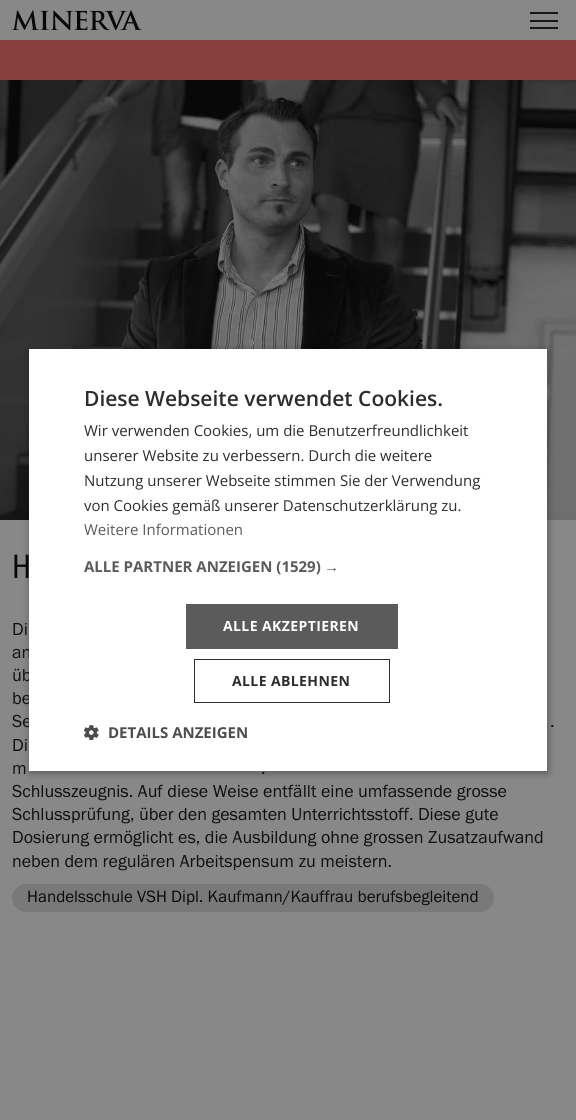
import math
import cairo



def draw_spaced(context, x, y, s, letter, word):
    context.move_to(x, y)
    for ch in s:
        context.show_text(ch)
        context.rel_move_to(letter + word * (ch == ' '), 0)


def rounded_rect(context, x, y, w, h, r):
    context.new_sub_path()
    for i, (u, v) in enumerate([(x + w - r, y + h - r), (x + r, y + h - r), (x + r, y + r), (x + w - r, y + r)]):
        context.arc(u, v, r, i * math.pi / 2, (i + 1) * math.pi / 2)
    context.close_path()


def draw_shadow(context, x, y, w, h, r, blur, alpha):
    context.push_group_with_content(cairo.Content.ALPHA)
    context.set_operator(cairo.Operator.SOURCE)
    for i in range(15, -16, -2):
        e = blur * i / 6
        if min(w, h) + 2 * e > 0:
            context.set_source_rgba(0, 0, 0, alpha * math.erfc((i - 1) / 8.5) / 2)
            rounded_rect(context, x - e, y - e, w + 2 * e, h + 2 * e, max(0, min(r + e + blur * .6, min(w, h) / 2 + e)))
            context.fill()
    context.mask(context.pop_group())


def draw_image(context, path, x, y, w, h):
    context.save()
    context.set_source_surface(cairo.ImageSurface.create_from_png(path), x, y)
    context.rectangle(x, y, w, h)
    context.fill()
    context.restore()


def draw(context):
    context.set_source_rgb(136 / 255, 136 / 255, 136 / 255)
    context.paint()
    draw_image(context, "images/1.png", 12, 10, 130, 20)
    context.set_source_rgb(23 / 255, 23 / 255, 23 / 255)
    context.rectangle(530, 12, 28, 2)
    context.fill()
    context.rectangle(530, 20, 28, 2)
    context.fill()
    context.rectangle(530, 27, 28, 2)
    context.fill()
    draw_image(context, "images/3.png", 0, 80, 576, 440)
    context.set_source_rgb(0, 0, 0)
    draw_shadow(context, 30, 351, 518, 422, 0, 4, 0.35)
    context.set_source_rgb(134 / 255, 65 / 255, 63 / 255)
    context.rectangle(0, 40, 576, 40)
    context.fill()
    context.set_source_rgb(121 / 255, 121 / 255, 121 / 255)
    rounded_rect(context, 12, 884, 482, 28, 14)
    context.fill()
    context.select_font_face("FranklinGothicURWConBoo")
    context.set_font_size(35)
    context.set_source_rgb(9 / 255, 9 / 255, 9 / 255)
    context.move_to(12, 578)
    context.show_text("H")
    context.select_font_face("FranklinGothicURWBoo")
    context.set_font_size(18)
    context.set_source_rgb(15 / 255, 15 / 255, 15 / 255)
    context.move_to(12, 635)
    context.show_text("Di")
    context.move_to(12, 658)
    context.show_text("an")
    context.move_to(12, 681)
    context.show_text("üb")
    context.move_to(12, 704)
    context.show_text("be")
    context.move_to(12, 727)
    context.show_text("Se")
    context.set_source_rgb(1, 1, 1)
    context.rectangle(29, 349, 518, 422)
    context.fill()
    context.select_font_face("Open Sans SemiBold")
    context.set_font_size(21)
    context.set_source_rgb(45 / 255, 45 / 255, 45 / 255)
    context.move_to(84, 406)
    context.show_text("Diese Webseite verwendet Cookies.")
    draw_image(context, "images/2.png", 84, 725, 15, 15)
    context.select_font_face("Open Sans", cairo.FontSlant.NORMAL, cairo.FontWeight.BOLD)
    context.set_font_size(15)
    context.set_source_rgb(77 / 255, 77 / 255, 77 / 255)
    context.move_to(108, 738)
    context.show_text("DETAILS ANZEIGEN")
    context.rectangle(194.5, 659.5, 195, 43)
    context.set_source_rgb(45 / 255, 45 / 255, 45 / 255)
    context.set_line_width(1)
    context.stroke()
    context.set_font_size(14)
    draw_spaced(context, 232, 686, "ALLE ABLEHNEN", 0.4, 0)
    context.set_source_rgb(91 / 255, 91 / 255, 91 / 255)
    context.rectangle(186, 604, 212, 45)
    context.fill()
    context.set_source_rgb(1, 1, 1)
    draw_spaced(context, 223, 631, "ALLE AKZEPTIEREN", 0.4, 0)
    context.select_font_face("Liberation Sans", cairo.FontSlant.NORMAL, cairo.FontWeight.BOLD)
    context.set_font_size(15)
    context.set_source_rgb(91 / 255, 91 / 255, 91 / 255)
    context.move_to(324, 572)
    context.show_text("→")
    context.select_font_face("Open Sans", cairo.FontSlant.NORMAL, cairo.FontWeight.BOLD)
    context.move_to(84, 572)
    context.show_text("ALLE PARTNER ANZEIGEN (1529)")
    context.select_font_face("Open Sans")
    context.move_to(84, 535)
    context.show_text("Weitere Informationen")
    context.set_source_rgb(45 / 255, 45 / 255, 45 / 255)
    context.move_to(84, 511)
    context.show_text("von Cookies gemäß unserer Datenschutzerklärung zu.")
    context.move_to(84, 486)
    context.show_text("Nutzung unserer Webseite stimmen Sie der Verwendung")
    context.move_to(84, 461)
    context.show_text("unserer Website zu verbessern. Durch die weitere")
    context.move_to(84, 436)
    context.show_text("Wir verwenden Cookies, um die Benutzerfreundlichkeit")
    context.select_font_face("FranklinGothicURWBoo")
    context.set_font_size(18)
    context.set_source_rgb(15 / 255, 15 / 255, 15 / 255)
    context.move_to(550, 727)
    context.show_text(".")
    context.move_to(12, 751)
    context.show_text("Di")
    context.move_to(12, 774)
    context.show_text("m")
    context.move_to(261, 774)
    context.show_text(".")
    context.move_to(12, 797)
    context.show_text("Schlusszeugnis. Auf diese Weise entfällt eine umfassende grosse")
    context.move_to(12, 820)
    context.show_text("Schlussprüfung, über den gesamten Unterrichtsstoff. Diese gute")
    context.move_to(12, 843)
    context.show_text("Dosierung ermöglicht es, die Ausbildung ohne grossen Zusatzaufwand")
    context.move_to(12, 867)
    context.show_text("neben dem regulären Arbeitspensum zu meistern.")
    context.set_font_size(17)
    context.set_source_rgb(9 / 255, 9 / 255, 9 / 255)
    context.move_to(27, 902)
    context.show_text("Handelsschule VSH Dipl. Kaufmann/Kauffrau berufsbegleitend")


surface = cairo.ImageSurface(cairo.Format.RGB24, 576, 1120)
context = cairo.Context(surface)
options = cairo.FontOptions()
options.set_hint_metrics(cairo.HintMetrics.OFF)
options.set_hint_style(cairo.HintStyle.NONE)
context.set_font_options(options)
context.set_miter_limit(4)
draw(context)
surface.write_to_png("out.png")
